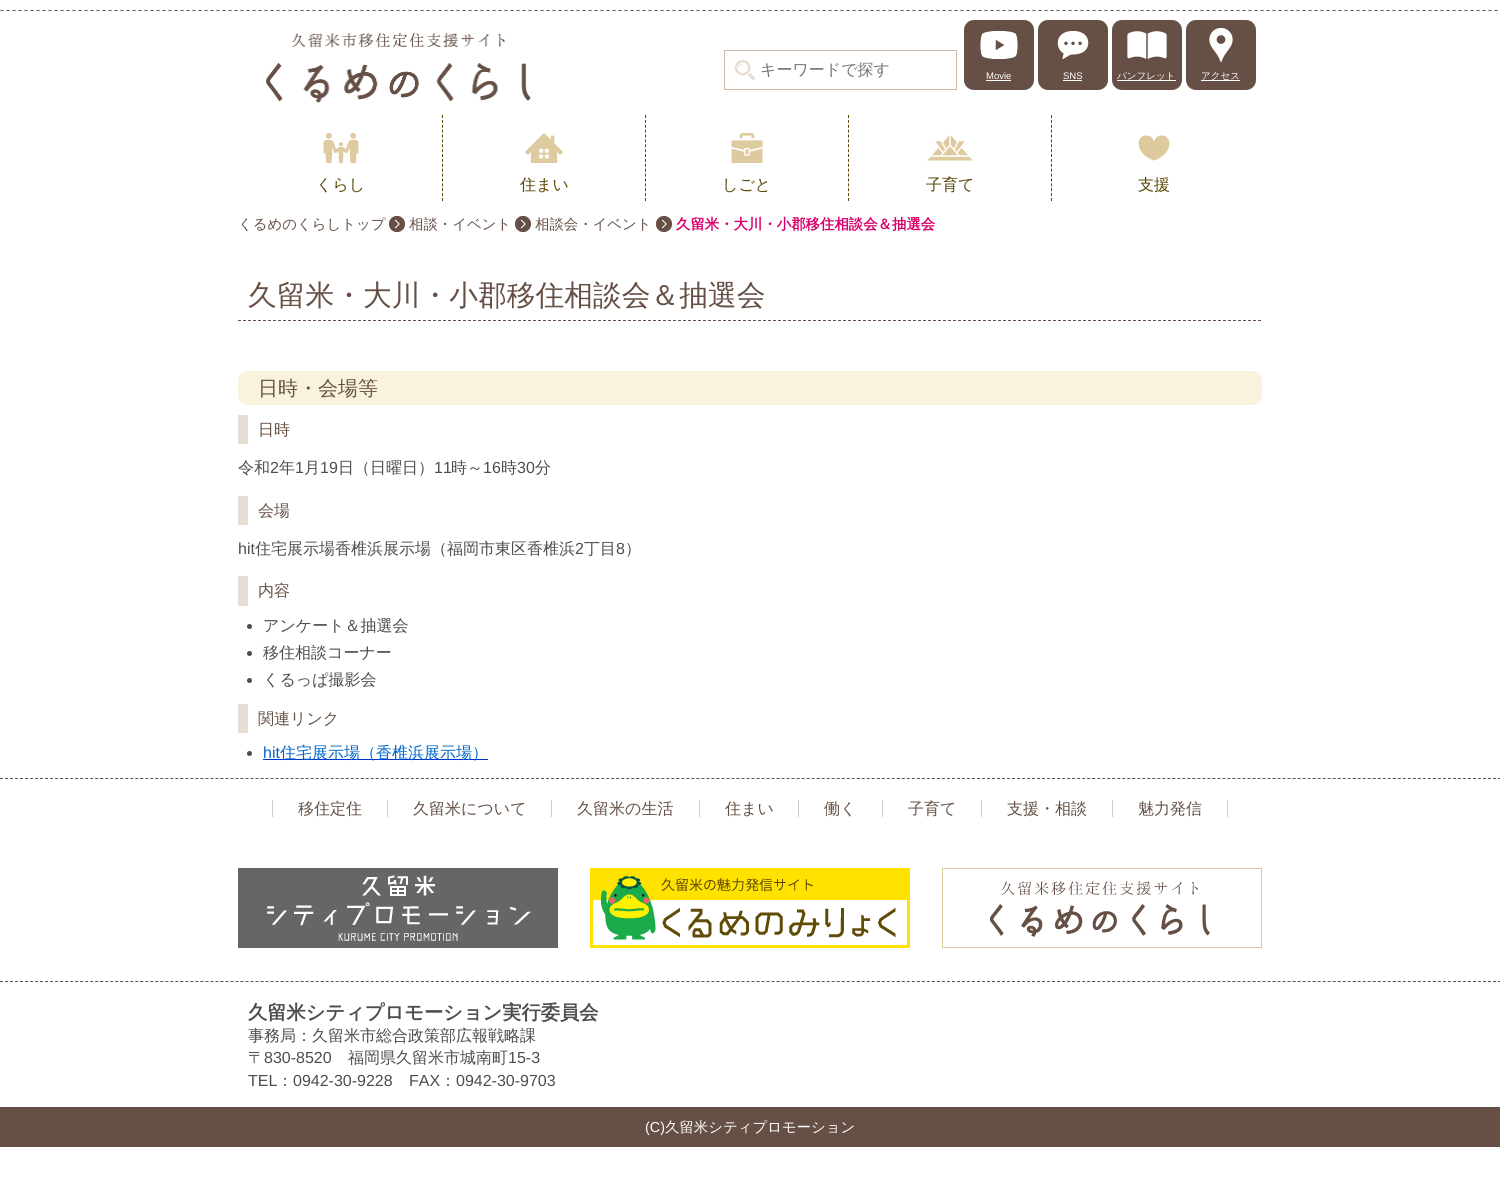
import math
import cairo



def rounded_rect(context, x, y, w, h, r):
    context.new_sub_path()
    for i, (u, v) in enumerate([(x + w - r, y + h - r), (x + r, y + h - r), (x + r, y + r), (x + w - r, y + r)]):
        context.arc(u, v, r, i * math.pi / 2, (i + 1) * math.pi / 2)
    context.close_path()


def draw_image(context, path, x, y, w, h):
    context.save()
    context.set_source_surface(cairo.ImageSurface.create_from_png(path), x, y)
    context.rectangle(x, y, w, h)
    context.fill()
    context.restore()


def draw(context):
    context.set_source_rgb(1, 1, 1)
    context.paint()
    draw_image(context, "images/1.png", 0, 10, 1498, 1)
    draw_image(context, "images/2.png", 266, 33, 265, 70)
    draw_image(context, "images/3.png", 735, 60, 20, 20)
    context.rectangle(724.5, 50.5, 232, 39)
    context.set_source_rgb(205 / 255, 183 / 255, 168 / 255)
    context.set_line_width(1)
    context.stroke()
    context.set_source_rgb(102 / 255, 80 / 255, 69 / 255)
    rounded_rect(context, 964, 20, 70, 70, 10)
    context.fill()
    draw_image(context, "images/4.png", 980, 31, 38, 28)
    context.set_source_rgb(1, 1, 1)
    context.rectangle(986, 80, 25, 1)
    context.fill()
    context.set_source_rgb(102 / 255, 80 / 255, 69 / 255)
    rounded_rect(context, 1038, 20, 70, 70, 10)
    context.fill()
    draw_image(context, "images/5.png", 1057, 31, 32, 28)
    context.set_source_rgb(1, 1, 1)
    context.rectangle(1063, 80, 19, 1)
    context.fill()
    context.set_source_rgb(102 / 255, 80 / 255, 69 / 255)
    rounded_rect(context, 1112, 20, 70, 70, 10)
    context.fill()
    draw_image(context, "images/6.png", 1127, 31, 40, 28)
    context.set_source_rgb(1, 1, 1)
    context.rectangle(1117, 80, 59, 1)
    context.fill()
    context.set_source_rgb(102 / 255, 80 / 255, 69 / 255)
    rounded_rect(context, 1186, 20, 70, 70, 10)
    context.fill()
    draw_image(context, "images/7.png", 1209, 28, 24, 34)
    context.set_source_rgb(1, 1, 1)
    context.rectangle(1201, 80, 39, 1)
    context.fill()
    draw_image(context, "images/8.png", 323, 133, 36, 30)
    context.new_path()
    context.move_to(442.5, 115)
    context.line_to(442.5, 201)
    context.set_source_rgb(91 / 255, 70 / 255, 5 / 255)
    context.set_dash([3, 1.88])
    context.stroke()
    draw_image(context, "images/9.png", 525, 133, 38, 30)
    context.new_path()
    context.move_to(645.5, 115)
    context.line_to(645.5, 201)
    context.stroke()
    draw_image(context, "images/10.png", 731, 133, 32, 30)
    context.new_path()
    context.move_to(848.5, 115)
    context.line_to(848.5, 201)
    context.stroke()
    draw_image(context, "images/11.png", 927, 135, 46, 26)
    context.new_path()
    context.move_to(1051.5, 115)
    context.line_to(1051.5, 201)
    context.stroke()
    draw_image(context, "images/12.png", 1138, 135, 32, 26)
    draw_image(context, "images/13.png", 389, 216, 16, 16)
    draw_image(context, "images/13.png", 515, 216, 16, 16)
    draw_image(context, "images/13.png", 656, 216, 16, 16)
    context.new_path()
    context.move_to(238, 320.5)
    context.line_to(1262, 320.5)
    context.set_source_rgb(102 / 255, 80 / 255, 69 / 255)
    context.set_dash([3, 2])
    context.stroke()
    context.set_source_rgb(249 / 255, 243 / 255, 221 / 255)
    rounded_rect(context, 238, 371, 1024, 34, 10)
    context.fill()
    context.set_source_rgb(230 / 255, 221 / 255, 213 / 255)
    context.rectangle(238, 415, 10, 29)
    context.fill()
    context.rectangle(238, 496, 10, 29)
    context.fill()
    context.rectangle(238, 576, 10, 30)
    context.fill()
    context.set_source_rgb(77 / 255, 77 / 255, 77 / 255)
    context.arc(249.5, 626.5, 2.5, 0, 2 * math.pi)
    context.fill()
    context.arc(249.5, 653.5, 2.5, 0, 2 * math.pi)
    context.fill()
    context.arc(249.5, 680.5, 2.5, 0, 2 * math.pi)
    context.fill()
    context.set_source_rgb(230 / 255, 221 / 255, 213 / 255)
    context.rectangle(238, 704, 10, 29)
    context.fill()
    context.set_source_rgb(77 / 255, 77 / 255, 77 / 255)
    context.arc(249.5, 753.5, 2.5, 0, 2 * math.pi)
    context.fill()
    context.set_source_rgb(0, 51 / 255, 204 / 255)
    context.rectangle(263, 759, 225, 1)
    context.fill()
    context.new_path()
    context.move_to(0, 778.5)
    context.line_to(1500, 778.5)
    context.set_source_rgb(102 / 255, 80 / 255, 69 / 255)
    context.set_dash([3, 2.01])
    context.stroke()
    context.new_path()
    context.move_to(0, 981.5)
    context.line_to(1500, 981.5)
    context.stroke()
    context.set_source_rgb(204 / 255, 204 / 255, 204 / 255)
    context.rectangle(387, 800, 1, 17)
    context.fill()
    context.rectangle(272, 800, 1, 17)
    context.fill()
    context.rectangle(551, 800, 1, 17)
    context.fill()
    context.rectangle(699, 800, 1, 17)
    context.fill()
    context.rectangle(798, 800, 1, 17)
    context.fill()
    context.rectangle(882, 800, 1, 17)
    context.fill()
    context.rectangle(981, 800, 1, 17)
    context.fill()
    context.rectangle(1112, 800, 1, 17)
    context.fill()
    context.rectangle(1227, 800, 1, 17)
    context.fill()
    draw_image(context, "images/14.png", 238, 868, 320, 80)
    draw_image(context, "images/15.png", 590, 868, 320, 80)
    draw_image(context, "images/16.png", 942, 868, 320, 80)
    context.set_source_rgb(102 / 255, 80 / 255, 69 / 255)
    context.rectangle(0, 1107, 1500, 40)
    context.fill()
    context.select_font_face("WenQuanYi Zen Hei Medium")
    context.set_font_size(16)
    context.set_source_rgb(117 / 255, 117 / 255, 117 / 255)
    context.move_to(760, 75)
    context.show_text("キーワードで探す")
    context.select_font_face("Liberation Sans")
    context.set_font_size(9.5)
    context.set_source_rgb(1, 1, 1)
    context.move_to(986, 79)
    context.show_text("Movie")
    context.move_to(1063, 79)
    context.show_text("SNS")
    context.select_font_face("WenQuanYi Zen Hei Medium")
    context.move_to(1117, 79)
    context.show_text("パンフレット")
    context.move_to(1201, 79)
    context.show_text("アクセス")
    context.set_font_size(16)
    context.set_source_rgb(91 / 255, 70 / 255, 5 / 255)
    context.move_to(316, 190)
    context.show_text("くらし")
    context.move_to(520, 190)
    context.show_text("住まい")
    context.move_to(722, 190)
    context.show_text("しごと")
    context.move_to(926, 190)
    context.show_text("子育て")
    context.move_to(1138, 190)
    context.show_text("支援")
    context.set_font_size(14.4)
    context.set_source_rgb(102 / 255, 80 / 255, 69 / 255)
    context.move_to(238, 229)
    context.show_text("くるめのくらしトップ")
    context.move_to(409, 229)
    context.show_text("相談・イベント")
    context.move_to(535, 229)
    context.show_text("相談会・イベント")
    context.select_font_face("WenQuanYi Zen Hei", cairo.FontSlant.NORMAL, cairo.FontWeight.BOLD)
    context.set_source_rgb(217 / 255, 0, 108 / 255)
    context.move_to(676, 229)
    context.show_text("久留米・大川・小郡移住相談会＆抽選会")
    context.select_font_face("WenQuanYi Zen Hei Medium")
    context.set_font_size(28.75)
    context.set_source_rgb(102 / 255, 80 / 255, 69 / 255)
    context.move_to(248, 305)
    context.show_text("久留米・大川・小郡移住相談会＆抽選会")
    context.set_font_size(20)
    context.move_to(258, 395)
    context.show_text("日時・会場等")
    context.set_font_size(16)
    context.move_to(258, 435)
    context.show_text("日時")
    context.set_source_rgb(77 / 255, 77 / 255, 77 / 255)
    context.move_to(238, 473)
    context.show_text("令和")
    context.select_font_face("Liberation Sans")
    context.move_to(270, 473)
    context.show_text("2")
    context.select_font_face("WenQuanYi Zen Hei Medium")
    context.move_to(279, 473)
    context.show_text("年")
    context.select_font_face("Liberation Sans")
    context.move_to(295, 473)
    context.show_text("1")
    context.select_font_face("WenQuanYi Zen Hei Medium")
    context.move_to(304, 473)
    context.show_text("月")
    context.select_font_face("Liberation Sans")
    context.move_to(320, 473)
    context.show_text("19")
    context.select_font_face("WenQuanYi Zen Hei Medium")
    context.move_to(338, 473)
    context.show_text("日（日曜日）")
    context.select_font_face("Liberation Sans")
    context.move_to(434, 473)
    context.show_text("11")
    context.select_font_face("WenQuanYi Zen Hei Medium")
    context.move_to(451, 473)
    context.show_text("時～")
    context.select_font_face("Liberation Sans")
    context.move_to(483, 473)
    context.show_text("16")
    context.select_font_face("WenQuanYi Zen Hei Medium")
    context.move_to(501, 473)
    context.show_text("時")
    context.select_font_face("Liberation Sans")
    context.move_to(517, 473)
    context.show_text("30")
    context.select_font_face("WenQuanYi Zen Hei Medium")
    context.move_to(535, 473)
    context.show_text("分")
    context.set_source_rgb(102 / 255, 80 / 255, 69 / 255)
    context.move_to(258, 516)
    context.show_text("会場")
    context.select_font_face("Liberation Sans")
    context.set_source_rgb(77 / 255, 77 / 255, 77 / 255)
    context.move_to(238, 554)
    context.show_text("hit")
    context.select_font_face("WenQuanYi Zen Hei Medium")
    context.move_to(255, 554)
    context.show_text("住宅展示場香椎浜展示場（福岡市東区香椎浜")
    context.select_font_face("Liberation Sans")
    context.move_to(575, 554)
    context.show_text("2")
    context.select_font_face("WenQuanYi Zen Hei Medium")
    context.move_to(584, 554)
    context.show_text("丁目")
    context.select_font_face("Liberation Sans")
    context.move_to(616, 554)
    context.show_text("8")
    context.select_font_face("WenQuanYi Zen Hei Medium")
    context.move_to(625, 554)
    context.show_text("）")
    context.set_source_rgb(102 / 255, 80 / 255, 69 / 255)
    context.move_to(258, 596)
    context.show_text("内容")
    context.set_source_rgb(77 / 255, 77 / 255, 77 / 255)
    context.move_to(263, 631)
    context.show_text("アンケート＆抽選会")
    context.move_to(263, 658)
    context.show_text("移住相談コーナー")
    context.move_to(263, 685)
    context.show_text("くるっぱ撮影会")
    context.set_source_rgb(102 / 255, 80 / 255, 69 / 255)
    context.move_to(258, 724)
    context.show_text("関連リンク")
    context.select_font_face("Liberation Sans")
    context.set_source_rgb(0, 102 / 255, 204 / 255)
    context.move_to(263, 758)
    context.show_text("hit")
    context.select_font_face("WenQuanYi Zen Hei Medium")
    context.move_to(280, 758)
    context.show_text("住宅展示場（香椎浜展示場）")
    context.set_source_rgb(102 / 255, 80 / 255, 69 / 255)
    context.move_to(298, 814)
    context.show_text("移住定住")
    context.move_to(413, 814)
    context.show_text("久留米について")
    context.move_to(577, 814)
    context.show_text("久留米の生活")
    context.move_to(725, 814)
    context.show_text("住まい")
    context.move_to(824, 814)
    context.show_text("働く")
    context.move_to(908, 814)
    context.show_text("子育て")
    context.move_to(1007, 814)
    context.show_text("支援・相談")
    context.move_to(1138, 814)
    context.show_text("魅力発信")
    context.select_font_face("WenQuanYi Zen Hei", cairo.FontSlant.NORMAL, cairo.FontWeight.BOLD)
    context.set_font_size(19.25)
    context.set_source_rgb(77 / 255, 77 / 255, 77 / 255)
    context.move_to(248, 1019)
    context.show_text("久留米シティプロモーション実行委員会")
    context.select_font_face("WenQuanYi Zen Hei Medium")
    context.set_font_size(16)
    context.move_to(248, 1041)
    context.show_text("事務局：久留米市総合政策部広報戦略課")
    context.move_to(248, 1063)
    context.show_text("〒")
    context.select_font_face("Liberation Sans")
    context.move_to(264, 1063)
    context.show_text("830-8520")
    context.select_font_face("WenQuanYi Zen Hei Medium")
    context.move_to(348, 1063)
    context.show_text("福岡県久留米市城南町")
    context.select_font_face("Liberation Sans")
    context.move_to(508, 1063)
    context.show_text("15-3")
    context.move_to(248, 1086)
    context.show_text("TEL")
    context.select_font_face("WenQuanYi Zen Hei Medium")
    context.move_to(277, 1086)
    context.show_text("：")
    context.select_font_face("Liberation Sans")
    context.move_to(293, 1086)
    context.show_text("0942-30-9228")
    context.move_to(409, 1086)
    context.show_text("FAX")
    context.select_font_face("WenQuanYi Zen Hei Medium")
    context.move_to(440, 1086)
    context.show_text("：")
    context.select_font_face("Liberation Sans")
    context.move_to(456, 1086)
    context.show_text("0942-30-9703")
    context.set_font_size(14.4)
    context.set_source_rgb(1, 1, 1)
    context.move_to(645, 1132)
    context.show_text("(C)")
    context.select_font_face("WenQuanYi Zen Hei Medium")
    context.move_to(665, 1132)
    context.show_text("久留米シティプロモーション")


surface = cairo.ImageSurface(cairo.Format.RGB24, 1500, 1203)
context = cairo.Context(surface)
options = cairo.FontOptions()
options.set_hint_metrics(cairo.HintMetrics.OFF)
options.set_hint_style(cairo.HintStyle.NONE)
context.set_font_options(options)
context.set_miter_limit(4)
draw(context)
surface.write_to_png("out.png")
